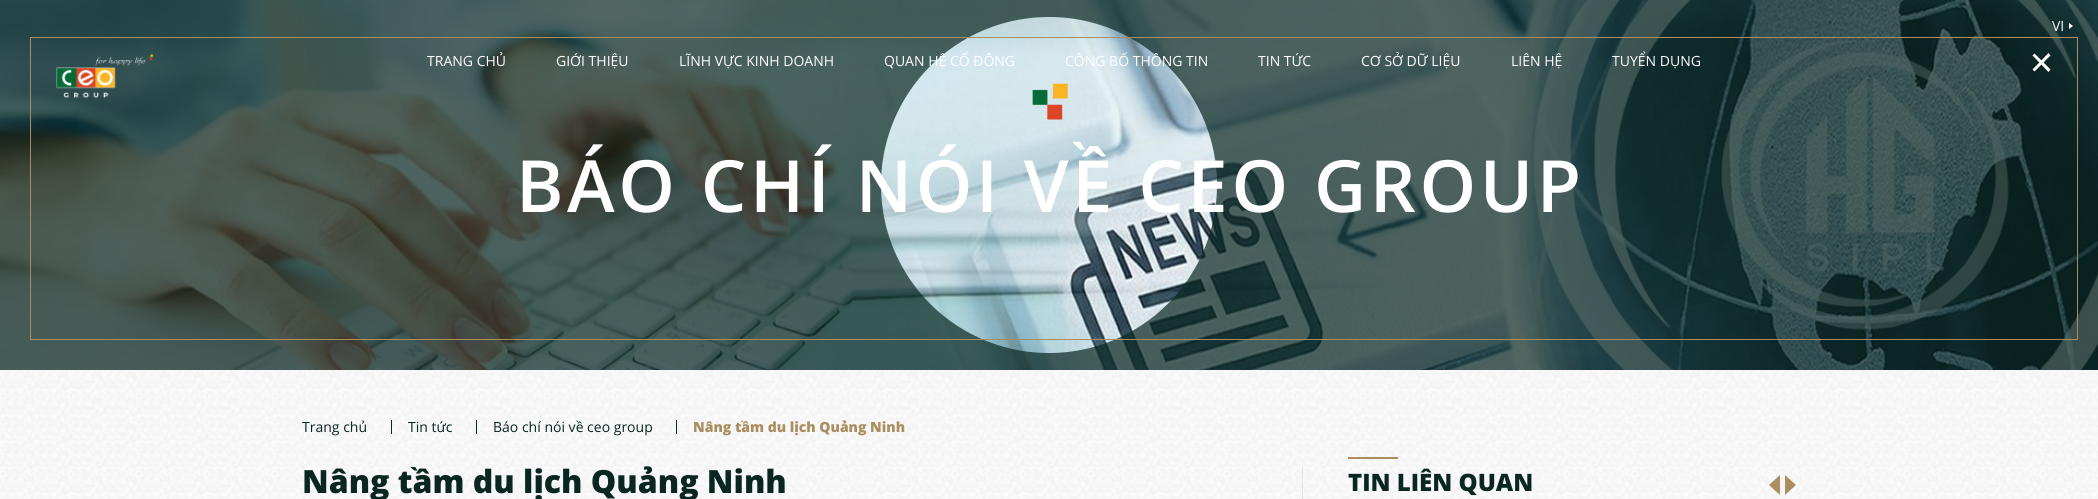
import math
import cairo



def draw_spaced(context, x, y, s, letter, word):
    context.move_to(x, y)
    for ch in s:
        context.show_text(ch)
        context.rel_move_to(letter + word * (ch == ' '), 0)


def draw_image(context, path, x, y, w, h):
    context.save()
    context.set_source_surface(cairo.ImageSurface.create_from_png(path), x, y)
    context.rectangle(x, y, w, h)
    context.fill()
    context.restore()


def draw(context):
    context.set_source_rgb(1, 1, 1)
    context.paint()
    draw_image(context, "images/2.png", 0, 0, 2098, 370)
    draw_image(context, "images/4.png", 0, 370, 2098, 129)
    context.set_source_rgb(9 / 255, 38 / 255, 32 / 255)
    context.rectangle(391, 420, 1, 14)
    context.fill()
    context.rectangle(476, 420, 1, 14)
    context.fill()
    context.rectangle(676, 420, 1, 14)
    context.fill()
    context.select_font_face("Open Sans")
    context.set_font_size(14)
    context.move_to(302, 432)
    context.show_text("Trang chủ")
    context.move_to(408, 432)
    context.show_text("Tin tức")
    context.move_to(493, 432)
    context.show_text("Báo chí nói về ceo group")
    context.select_font_face("Open Sans ExtraBold")
    context.set_source_rgb(170 / 255, 142 / 255, 96 / 255)
    context.move_to(693, 432)
    context.show_text("Nâng tầm du lịch Quảng Ninh")
    context.save()
    context.rectangle(0, 0, 2098, 370)
    context.clip()
    context.arc(1049, 185, 1133, 0, 2 * math.pi)
    context.set_source_rgba(9 / 255, 38 / 255, 32 / 255, 0.7)
    context.set_line_width(1930)
    context.stroke()
    context.restore()
    context.rectangle(30.5, 37.5, 2047, 302)
    context.set_line_width(1)
    context.stroke()
    context.set_source_rgb(1, 1, 1)
    context.new_path()
    context.move_to(2069, 29)
    context.line_to(2069, 23)
    context.line_to(2073, 26)
    context.close_path()
    context.move_to(2034.5, 53.5)
    context.line_to(2050.5, 69.5)
    context.line_to(2048.5, 72)
    context.line_to(2032.5, 55.5)
    context.close_path()
    context.fill()
    context.new_path()
    context.move_to(2032.5, 69.5)
    context.line_to(2048.5, 53)
    context.line_to(2050.5, 55.5)
    context.line_to(2034.5, 71.5)
    context.close_path()
    context.fill()
    context.select_font_face("Open Sans")
    context.move_to(2052, 31)
    context.show_text("VI")
    context.move_to(1612, 66)
    context.show_text("TUYỂN DỤNG")
    context.move_to(1511, 66)
    context.show_text("LIÊN HỆ")
    context.move_to(1361, 66)
    context.show_text("CƠ SỞ DỮ LIỆU")
    context.move_to(1258, 66)
    context.show_text("TIN TỨC")
    context.move_to(1065, 66)
    context.show_text("CÔNG BỐ THÔNG TIN")
    context.move_to(884, 66)
    context.show_text("QUAN HỆ CỔ ĐÔNG")
    context.move_to(679, 66)
    context.show_text("LĨNH VỰC KINH DOANH")
    context.move_to(556, 66)
    context.show_text("GIỚI THIỆU")
    context.move_to(427, 66)
    context.show_text("TRANG CHỦ")
    draw_image(context, "images/1.png", 56, 54, 98, 45)
    context.select_font_face("Open Sans SemiBold")
    context.set_font_size(72)
    draw_spaced(context, 516, 212, "BÁO CHÍ NÓI VỀ CEO GROUP", 3.6, 0)
    draw_image(context, "images/3.png", 1032, 83, 36, 37)
    context.select_font_face("Open Sans ExtraBold")
    context.set_font_size(32)
    context.set_source_rgb(9 / 255, 38 / 255, 32 / 255)
    context.move_to(302, 493)
    context.show_text("Nâng tầm du lịch Quảng Ninh")
    context.set_source_rgb(232 / 255, 227 / 255, 219 / 255)
    context.rectangle(1302, 467, 1, 32)
    context.fill()
    context.set_source_rgb(170 / 255, 142 / 255, 96 / 255)
    context.rectangle(1348, 457, 50, 2)
    context.fill()
    context.set_font_size(24)
    context.set_source_rgb(9 / 255, 38 / 255, 32 / 255)
    context.move_to(1348, 491)
    context.show_text("TIN LIÊN QUAN")
    context.set_source_rgb(170 / 255, 142 / 255, 96 / 255)
    context.new_path()
    context.move_to(1780, 475)
    context.line_to(1780, 495)
    context.line_to(1769, 485)
    context.close_path()
    context.move_to(1785, 495)
    context.line_to(1785, 475)
    context.line_to(1796, 485)
    context.close_path()
    context.fill()


surface = cairo.ImageSurface(cairo.Format.RGB24, 2098, 499)
context = cairo.Context(surface)
options = cairo.FontOptions()
options.set_hint_metrics(cairo.HintMetrics.OFF)
options.set_hint_style(cairo.HintStyle.NONE)
context.set_font_options(options)
context.set_miter_limit(4)
draw(context)
surface.write_to_png("out.png")
